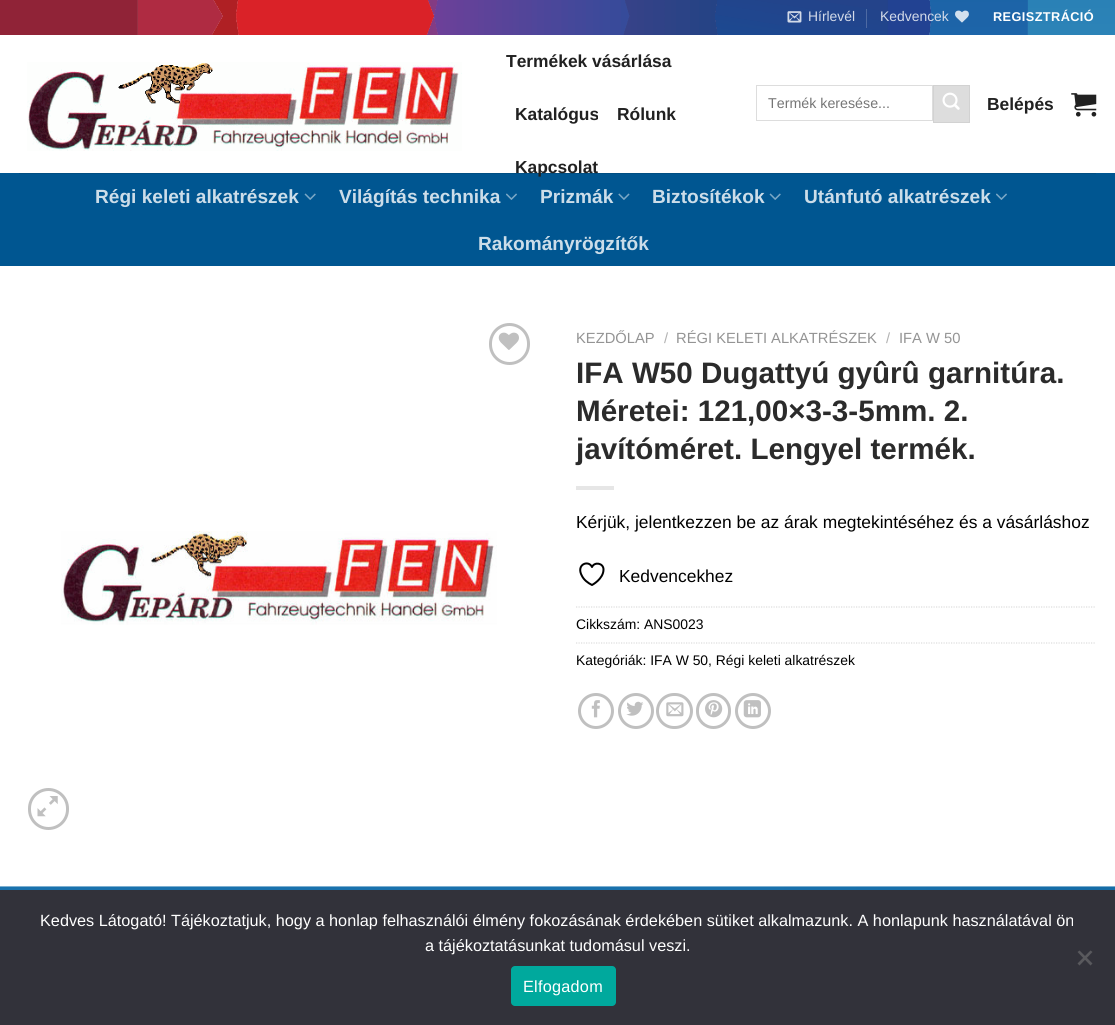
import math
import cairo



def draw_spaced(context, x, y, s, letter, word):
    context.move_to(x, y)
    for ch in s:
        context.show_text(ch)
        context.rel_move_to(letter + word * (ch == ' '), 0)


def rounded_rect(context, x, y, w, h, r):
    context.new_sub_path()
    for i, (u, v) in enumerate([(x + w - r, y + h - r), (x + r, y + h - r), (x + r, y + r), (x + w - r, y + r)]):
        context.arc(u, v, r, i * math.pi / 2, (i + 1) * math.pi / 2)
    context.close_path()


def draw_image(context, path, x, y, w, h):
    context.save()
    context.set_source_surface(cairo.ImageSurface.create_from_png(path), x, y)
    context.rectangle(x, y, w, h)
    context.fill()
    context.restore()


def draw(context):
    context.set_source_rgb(1, 1, 1)
    context.paint()
    draw_image(context, "images/1.png", 0, 0, 1115, 35)
    draw_image(context, "images/2.png", 787, 11, 15, 12)
    context.set_source_rgb(78 / 255, 106 / 255, 163 / 255)
    context.rectangle(866, 9, 1, 19)
    context.fill()
    draw_image(context, "images/3.png", 955, 10, 14, 13)
    draw_image(context, "images/4.png", 27, 62, 435, 89)
    context.rectangle(756.5, 85.5, 176, 35)
    context.set_source_rgb(221 / 255, 221 / 255, 221 / 255)
    context.set_line_width(1)
    context.stroke()
    context.rectangle(933.5, 85.5, 36, 37)
    context.fill_preserve()
    context.set_source_rgb(210 / 255, 210 / 255, 210 / 255)
    context.stroke()
    draw_image(context, "images/5.png", 942, 92, 18, 18)
    draw_image(context, "images/6.png", 1071, 93, 26, 24)
    context.set_source_rgb(0, 86 / 255, 145 / 255)
    context.rectangle(0, 173, 1115, 93)
    context.fill()
    context.set_source_rgba(0, 0, 0, 0.1)
    context.rectangle(19, 173, 1077, 1)
    context.fill()
    draw_image(context, "images/7.png", 304, 193, 12, 7)
    draw_image(context, "images/8.png", 506, 193, 11, 7)
    draw_image(context, "images/9.png", 618, 193, 12, 7)
    draw_image(context, "images/7.png", 769, 193, 12, 7)
    draw_image(context, "images/8.png", 996, 193, 11, 7)
    rounded_rect(context, 490.5, 324.5, 38, 39, 19)
    context.set_source_rgb(192 / 255, 192 / 255, 192 / 255)
    context.set_line_width(3)
    context.stroke()
    draw_image(context, "images/10.png", 498, 332, 21, 18)
    draw_image(context, "images/11.png", 61, 531, 436, 94)
    rounded_rect(context, 29.5, 789.5, 38, 39, 19)
    context.stroke()
    draw_image(context, "images/12.png", 37, 796, 21, 21)
    context.set_source_rgb(230 / 255, 230 / 255, 230 / 255)
    context.rectangle(576, 486, 38, 4)
    context.fill()
    context.new_path()
    context.move_to(603.5, 569.5)
    context.curve_to(603.5, 563, 594.5, 561.5, 592, 567)
    context.curve_to(588.5, 559.5, 575.5, 564.5, 582, 576)
    context.curve_to(584, 580, 588, 583, 592, 585)
    context.curve_to(592, 585, 603.5, 579, 603.5, 569.5)
    context.close_path()
    context.set_source_rgb(0, 0, 0)
    context.set_line_width(2)
    context.set_line_cap(cairo.LineCap.ROUND)
    context.set_line_join(cairo.LineJoin.ROUND)
    context.stroke()
    context.new_path()
    context.move_to(576, 607)
    context.line_to(1096, 607)
    context.set_source_rgb(221 / 255, 221 / 255, 221 / 255)
    context.set_line_width(1.2)
    context.set_line_cap(cairo.LineCap.BUTT)
    context.set_line_join(cairo.LineJoin.MITER)
    context.set_dash([1.25, 1.25])
    context.stroke()
    context.new_path()
    context.move_to(576, 643)
    context.line_to(1096, 643)
    context.stroke()
    context.arc(596, 711, 16.5, 0, 2 * math.pi)
    context.set_source_rgb(192 / 255, 192 / 255, 192 / 255)
    context.set_line_width(3)
    context.set_dash([])
    context.stroke()
    draw_image(context, "images/13.png", 591, 700, 9, 18)
    context.arc(636, 711, 16.5, 0, 2 * math.pi)
    context.stroke()
    draw_image(context, "images/14.png", 626, 701, 18, 15)
    rounded_rect(context, 657.5, 694.5, 34, 33, 16.5)
    context.stroke()
    draw_image(context, "images/15.png", 666, 702, 18, 15)
    rounded_rect(context, 697.5, 694.5, 32, 33, 16)
    context.stroke()
    draw_image(context, "images/16.png", 705, 700, 18, 18)
    context.arc(753, 711, 16.5, 0, 2 * math.pi)
    context.stroke()
    draw_image(context, "images/17.png", 743, 700, 18, 18)
    draw_image(context, "images/18.png", 0, 886, 1115, 4)
    context.set_source_rgb(50 / 255, 50 / 255, 58 / 255)
    context.rectangle(0, 890, 1115, 135)
    context.fill()
    context.set_source_rgb(89 / 255, 89 / 255, 93 / 255)
    context.new_path()
    context.move_to(1090.5, 950.5)
    context.line_to(1092.5, 952)
    context.line_to(1079.5, 965.5)
    context.line_to(1077.5, 963.5)
    context.close_path()
    context.fill()
    context.new_path()
    context.move_to(1077.5, 952)
    context.line_to(1079.5, 950.5)
    context.line_to(1092.5, 963.5)
    context.line_to(1090.5, 965.5)
    context.close_path()
    context.fill()
    context.set_source_rgb(0, 169 / 255, 157 / 255)
    rounded_rect(context, 511, 966, 105, 40, 4)
    context.fill()
    context.select_font_face("Liberation Sans")
    context.set_font_size(13.9)
    context.set_source_rgb(211 / 255, 218 / 255, 232 / 255)
    context.move_to(808, 21)
    context.show_text("Hírlevél")
    context.move_to(880, 21)
    context.show_text("Kedvencek")
    context.select_font_face("Liberation Sans", cairo.FontSlant.NORMAL, cairo.FontWeight.BOLD)
    context.set_font_size(12.75)
    context.set_source_rgb(1, 1, 1)
    draw_spaced(context, 993, 21, "REGISZTRÁCIÓ", 0.4, 0)
    context.set_font_size(17.4)
    context.set_source_rgb(33 / 255, 33 / 255, 33 / 255)
    context.move_to(506, 67)
    context.show_text("Termékek vásárlása")
    context.move_to(515, 120)
    context.show_text("Katalógus")
    context.move_to(617, 120)
    context.show_text("Rólunk")
    context.move_to(515, 173)
    context.show_text("Kapcsolat")
    context.select_font_face("Liberation Sans")
    context.set_font_size(14.25)
    context.set_source_rgb(117 / 255, 117 / 255, 117 / 255)
    context.move_to(768, 108)
    context.show_text("Termék keresése...")
    context.select_font_face("Liberation Sans", cairo.FontSlant.NORMAL, cairo.FontWeight.BOLD)
    context.set_font_size(17.4)
    context.set_source_rgb(33 / 255, 33 / 255, 33 / 255)
    context.move_to(987, 110)
    context.show_text("Belépés")
    context.set_font_size(19.1)
    context.set_source_rgb(204 / 255, 221 / 255, 233 / 255)
    context.move_to(95, 203)
    context.show_text("Régi keleti alkatrészek")
    context.move_to(339, 203)
    context.show_text("Világítás technika")
    context.move_to(540, 203)
    context.show_text("Prizmák")
    context.move_to(652, 203)
    context.show_text("Biztosítékok")
    context.move_to(804, 203)
    context.show_text("Utánfutó alkatrészek")
    context.move_to(478, 250)
    context.show_text("Rakományrögzítők")
    context.select_font_face("Liberation Sans")
    context.set_font_size(14.75)
    context.set_source_rgb(148 / 255, 148 / 255, 148 / 255)
    context.move_to(576, 343)
    context.show_text("KEZDŐLAP")
    context.set_source_rgb(178 / 255, 178 / 255, 178 / 255)
    context.move_to(664, 343)
    context.show_text("/")
    context.set_source_rgb(148 / 255, 148 / 255, 148 / 255)
    context.move_to(676, 343)
    context.show_text("RÉGI KELETI ALKATRÉSZEK")
    context.set_source_rgb(178 / 255, 178 / 255, 178 / 255)
    context.move_to(886, 343)
    context.show_text("/")
    context.set_source_rgb(148 / 255, 148 / 255, 148 / 255)
    context.move_to(899, 343)
    context.show_text("IFA W 50")
    context.select_font_face("Liberation Sans", cairo.FontSlant.NORMAL, cairo.FontWeight.BOLD)
    context.set_font_size(29.6)
    context.set_source_rgb(43 / 255, 43 / 255, 43 / 255)
    context.move_to(576, 383)
    context.show_text("IFA W50 Dugattyú gyûrû garnitúra.")
    context.move_to(576, 421)
    context.show_text("Méretei: 121,00×3-3-5mm. 2.")
    context.move_to(576, 459)
    context.show_text("javítóméret. Lengyel termék.")
    context.select_font_face("Liberation Sans")
    context.set_font_size(17.4)
    context.set_source_rgb(0, 0, 0)
    context.move_to(576, 528)
    context.show_text("Kérjük, jelentkezzen be az árak megtekintéséhez és a vásárláshoz")
    context.move_to(619, 582)
    context.show_text("Kedvencekhez")
    context.set_font_size(13.9)
    context.move_to(576, 629)
    context.show_text("Cikkszám: ANS0023")
    context.move_to(576, 665)
    context.show_text("Kategóriák: IFA W 50, Régi keleti alkatrészek")
    context.set_font_size(16.25)
    context.set_source_rgb(1, 1, 1)
    context.move_to(40, 926)
    context.show_text("Kedves Látogató! Tájékoztatjuk, hogy a honlap felhasználói élmény fokozásának érdekében sütiket alkalmazunk. A honlapunk használatával ön")
    context.move_to(425, 951)
    context.show_text("a tájékoztatásunkat tudomásul veszi.")
    draw_spaced(context, 523, 992, "Elfogadom", 0.25, 0)


surface = cairo.ImageSurface(cairo.Format.RGB24, 1115, 1025)
context = cairo.Context(surface)
options = cairo.FontOptions()
options.set_hint_metrics(cairo.HintMetrics.OFF)
options.set_hint_style(cairo.HintStyle.NONE)
context.set_font_options(options)
context.set_miter_limit(4)
draw(context)
surface.write_to_png("out.png")
